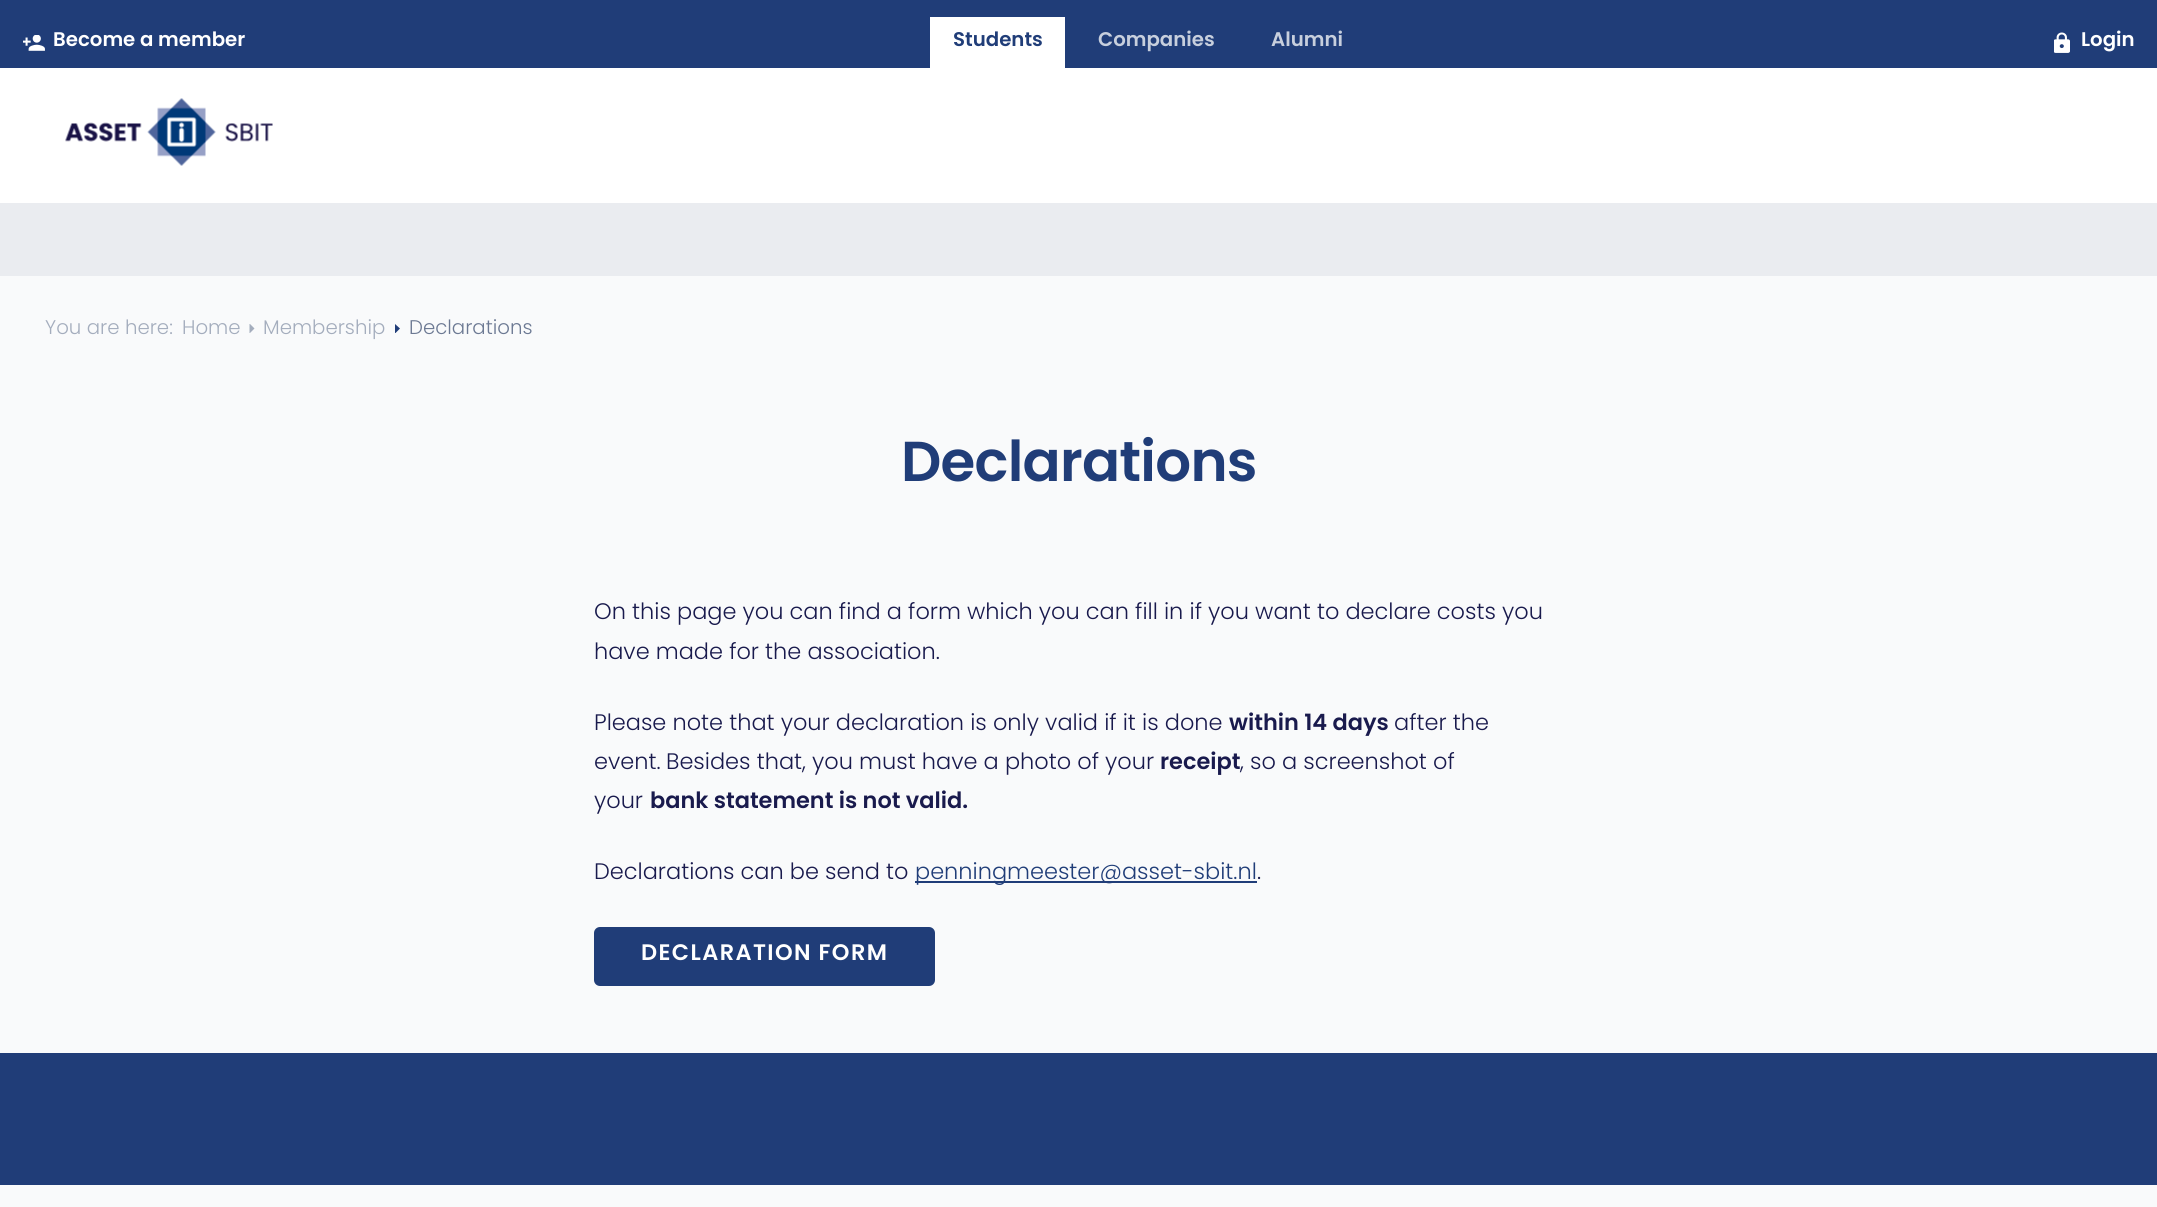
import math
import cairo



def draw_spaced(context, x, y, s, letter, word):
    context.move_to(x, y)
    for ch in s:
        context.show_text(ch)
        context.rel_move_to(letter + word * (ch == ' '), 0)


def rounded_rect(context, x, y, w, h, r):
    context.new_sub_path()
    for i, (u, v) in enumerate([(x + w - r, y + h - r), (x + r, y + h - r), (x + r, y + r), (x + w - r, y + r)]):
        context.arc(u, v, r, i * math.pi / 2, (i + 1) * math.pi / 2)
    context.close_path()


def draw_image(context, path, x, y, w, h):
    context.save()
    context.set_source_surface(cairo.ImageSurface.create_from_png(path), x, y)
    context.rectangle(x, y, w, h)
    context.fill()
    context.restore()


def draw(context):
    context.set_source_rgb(249 / 255, 250 / 255, 251 / 255)
    context.paint()
    context.set_source_rgb(32 / 255, 61 / 255, 120 / 255)
    context.rectangle(0, 0, 2157, 68)
    context.fill()
    draw_image(context, "images/1.png", 23, 35, 22, 16)
    context.set_source_rgb(1, 1, 1)
    context.rectangle(930, 17, 135, 51)
    context.fill()
    draw_image(context, "images/2.png", 2054, 32, 16, 21)
    context.set_source_rgb(234 / 255, 236 / 255, 240 / 255)
    context.rectangle(0, 203, 2157, 73)
    context.fill()
    context.set_source_rgb(1, 1, 1)
    context.rectangle(0, 68, 2157, 135)
    context.fill()
    draw_image(context, "images/3.png", 65, 98, 208, 68)
    context.set_source_rgb(164 / 255, 173 / 255, 189 / 255)
    context.new_path()
    context.move_to(254.5, 328.5)
    context.line_to(250, 333)
    context.line_to(249.5, 333)
    context.line_to(249.5, 324)
    context.line_to(250, 324)
    context.close_path()
    context.fill()
    context.set_source_rgb(32 / 255, 61 / 255, 120 / 255)
    context.new_path()
    context.move_to(395, 324)
    context.line_to(400, 328.5)
    context.line_to(395.5, 333)
    context.line_to(395, 333)
    context.close_path()
    context.fill()
    context.rectangle(915, 881, 342, 2)
    context.fill()
    rounded_rect(context, 595, 928, 339, 57, 5)
    context.fill_preserve()
    context.stroke()
    context.rectangle(0, 1053, 2157, 132)
    context.fill()
    context.select_font_face("Poppins SemiBold")
    context.set_font_size(19.75)
    context.set_source_rgb(1, 1, 1)
    context.move_to(53, 46)
    context.show_text("Become a member")
    context.set_source_rgb(32 / 255, 61 / 255, 120 / 255)
    context.move_to(953, 46)
    context.show_text("Students")
    context.set_source_rgb(199 / 255, 207 / 255, 221 / 255)
    context.move_to(1098, 46)
    context.show_text("Companies")
    context.move_to(1271, 46)
    context.show_text("Alumni")
    context.set_source_rgb(1, 1, 1)
    context.move_to(2081, 46)
    context.show_text("Login")
    context.select_font_face("Poppins Light")
    context.set_source_rgb(164 / 255, 173 / 255, 189 / 255)
    context.move_to(45, 334)
    context.show_text("You are here:")
    context.move_to(182, 334)
    context.show_text("Home")
    context.move_to(263, 334)
    context.show_text("Membership")
    context.set_source_rgb(108 / 255, 121 / 255, 147 / 255)
    context.move_to(409, 334)
    context.show_text("Declarations")
    context.select_font_face("Poppins SemiBold")
    context.set_font_size(56.25)
    context.set_source_rgb(32 / 255, 61 / 255, 120 / 255)
    draw_spaced(context, 901, 481, "Declarations", -0.75, 0)
    context.select_font_face("Poppins Light")
    context.set_font_size(22.45)
    context.set_source_rgb(25 / 255, 26 / 255, 77 / 255)
    context.move_to(594, 619)
    context.show_text("On this page you can find a form which you can fill in if you want to declare costs you")
    context.move_to(594, 659)
    context.show_text("have made for the association.")
    context.move_to(594, 730)
    context.show_text("Please note that your declaration is only valid if it is done")
    context.select_font_face("Poppins SemiBold")
    context.move_to(1229, 730)
    context.show_text("within 14 days")
    context.select_font_face("Poppins Light")
    context.move_to(1394, 730)
    context.show_text("after the")
    context.move_to(594, 769)
    context.show_text("event.")
    context.move_to(666, 769)
    context.show_text("Besides that, you must have a photo of your")
    context.select_font_face("Poppins SemiBold")
    context.move_to(1160, 769)
    context.show_text("receipt")
    context.select_font_face("Poppins Light")
    context.move_to(1240, 769)
    context.show_text(",")
    context.move_to(1250, 769)
    context.show_text("so a screenshot of")
    context.move_to(594, 808)
    context.show_text("your")
    context.select_font_face("Poppins SemiBold")
    context.move_to(650, 808)
    context.show_text("bank statement is not valid.")
    context.select_font_face("Poppins Light")
    context.move_to(594, 879)
    context.show_text("Declarations can be send to")
    context.set_source_rgb(32 / 255, 61 / 255, 120 / 255)
    context.move_to(915, 879)
    context.show_text("penningmeester@asset-sbit.nl")
    context.set_source_rgb(25 / 255, 26 / 255, 77 / 255)
    context.move_to(1257, 879)
    context.show_text(".")
    context.select_font_face("Poppins SemiBold")
    context.set_source_rgb(1, 1, 1)
    draw_spaced(context, 641, 960, "DECLARATION FORM", 1.4, 0)


surface = cairo.ImageSurface(cairo.Format.RGB24, 2157, 1207)
context = cairo.Context(surface)
options = cairo.FontOptions()
options.set_hint_metrics(cairo.HintMetrics.OFF)
options.set_hint_style(cairo.HintStyle.NONE)
context.set_font_options(options)
context.set_miter_limit(4)
draw(context)
surface.write_to_png("out.png")
